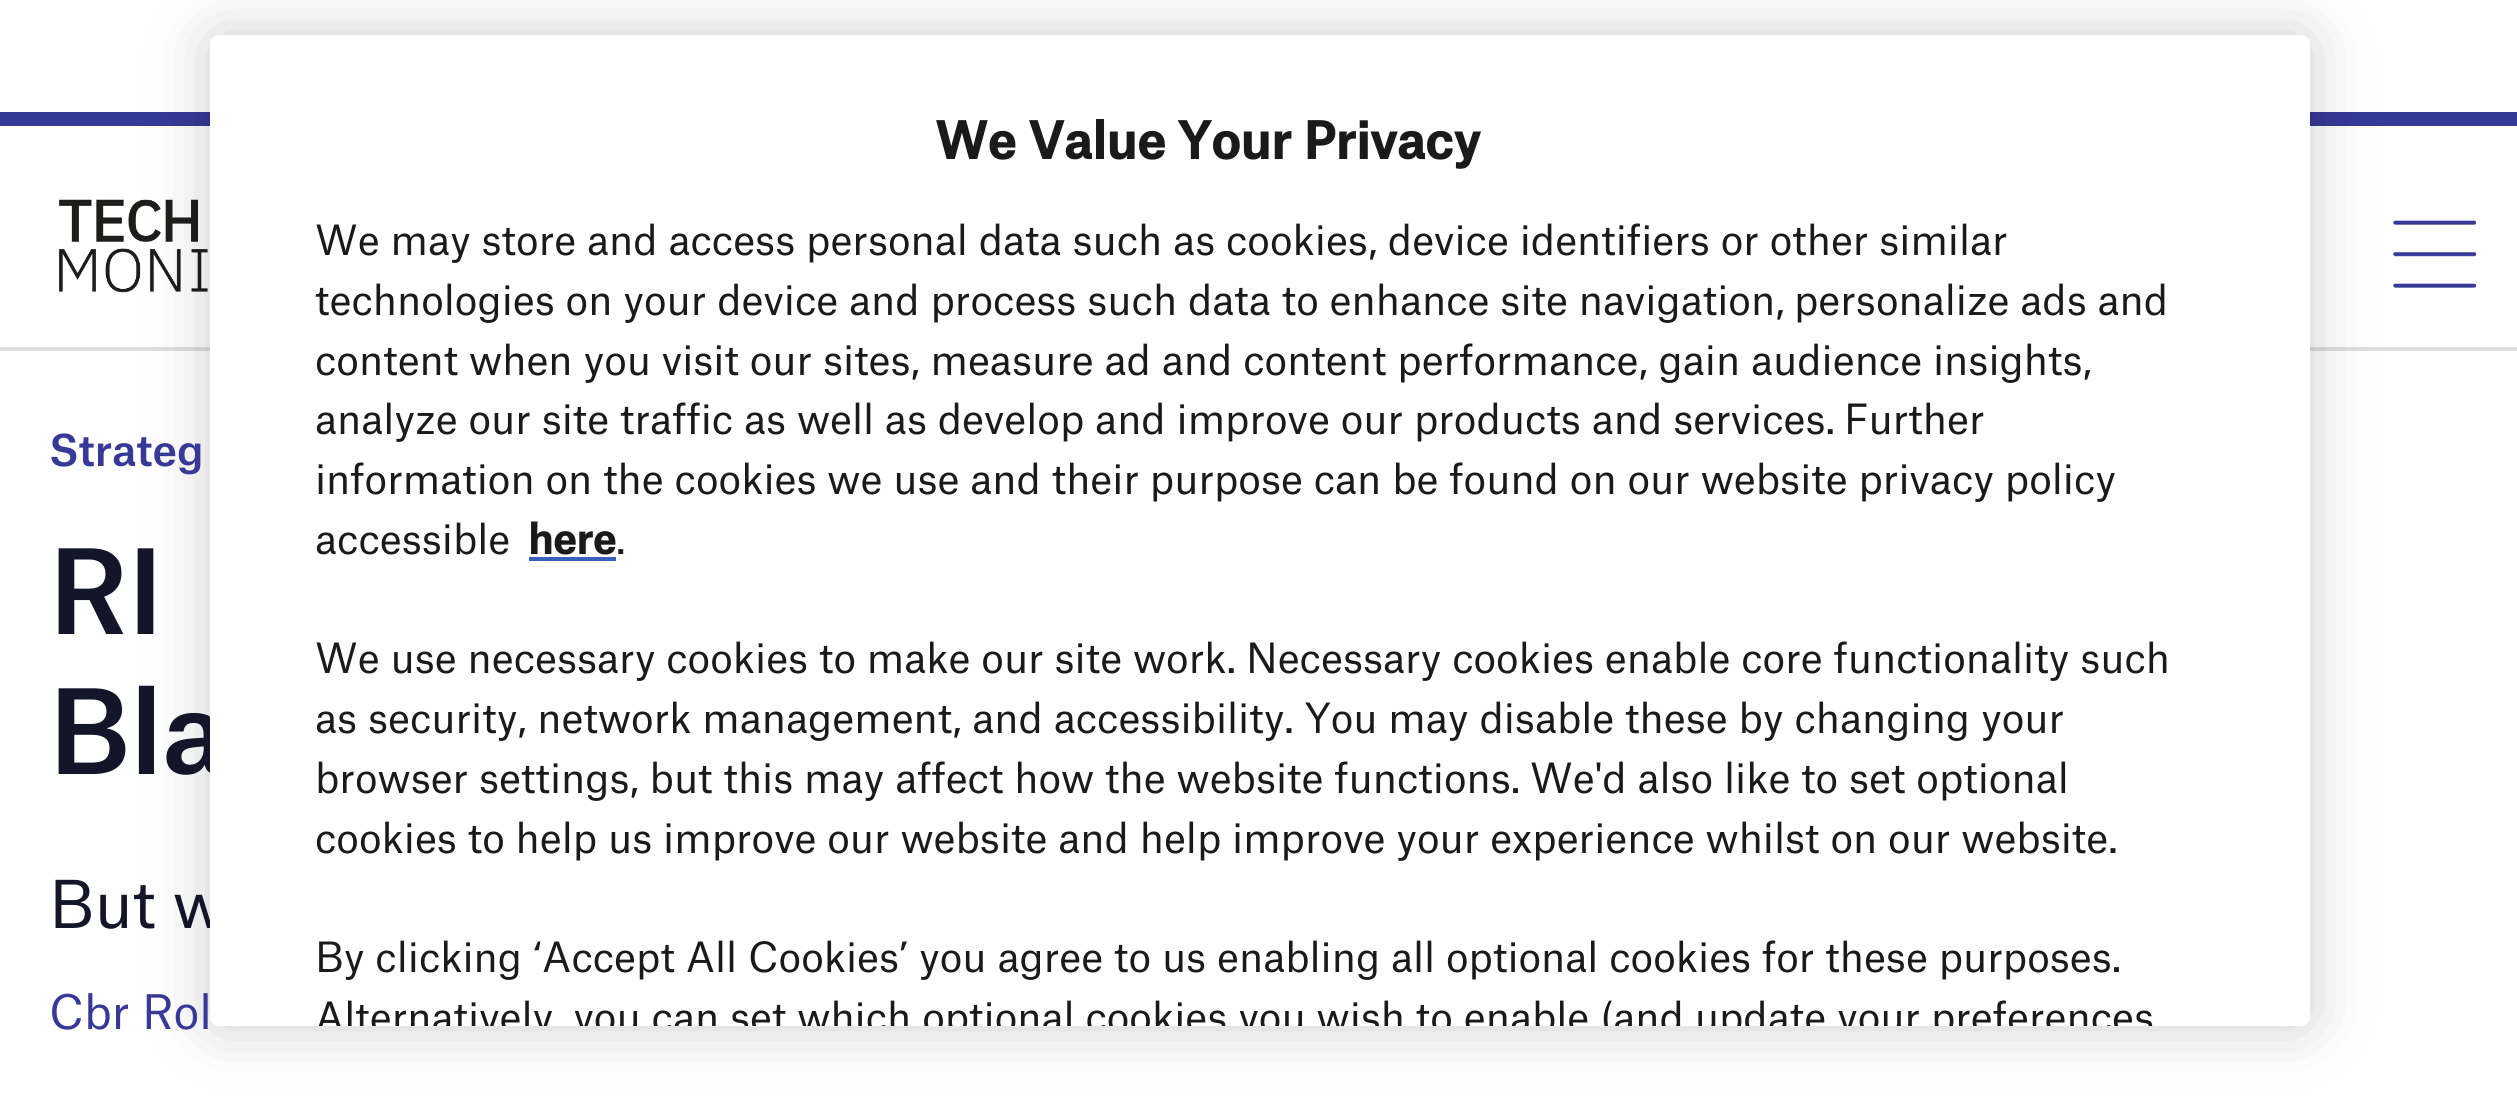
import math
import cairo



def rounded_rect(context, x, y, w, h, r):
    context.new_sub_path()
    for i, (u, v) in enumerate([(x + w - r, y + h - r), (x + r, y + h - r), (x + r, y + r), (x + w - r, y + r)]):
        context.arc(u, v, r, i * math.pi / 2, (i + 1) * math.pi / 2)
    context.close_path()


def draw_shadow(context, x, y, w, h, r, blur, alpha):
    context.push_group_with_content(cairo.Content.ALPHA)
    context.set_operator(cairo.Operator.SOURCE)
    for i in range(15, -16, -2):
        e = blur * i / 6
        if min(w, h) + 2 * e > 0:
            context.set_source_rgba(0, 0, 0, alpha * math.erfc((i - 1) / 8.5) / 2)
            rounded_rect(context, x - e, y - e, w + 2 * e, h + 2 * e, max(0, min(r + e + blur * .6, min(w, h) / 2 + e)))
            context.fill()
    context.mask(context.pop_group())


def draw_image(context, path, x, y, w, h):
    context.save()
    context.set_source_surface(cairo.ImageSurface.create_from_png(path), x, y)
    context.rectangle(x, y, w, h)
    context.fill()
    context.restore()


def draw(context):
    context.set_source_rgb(1, 1, 1)
    context.paint()
    context.set_source_rgb(55 / 255, 57 / 255, 151 / 255)
    context.rectangle(0, 112, 2517, 14)
    context.fill()
    context.set_source_rgb(221 / 255, 221 / 255, 221 / 255)
    context.rectangle(0, 347, 2517, 4)
    context.fill()
    draw_image(context, "images/1.png", 59, 199, 151, 94)
    draw_image(context, "images/2.png", 2393, 220, 84, 68)
    context.set_source_rgb(0, 0, 0)
    draw_shadow(context, 210, 35, 2100, 991, 9, 31.5, 0.2)
    context.select_font_face("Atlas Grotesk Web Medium")
    context.set_font_size(42)
    context.set_source_rgb(55 / 255, 57 / 255, 151 / 255)
    context.move_to(49, 466)
    context.show_text("Strateg")
    context.set_font_size(112)
    context.set_source_rgb(21 / 255, 21 / 255, 41 / 255)
    context.move_to(49, 634)
    context.show_text("RI")
    context.move_to(49, 774)
    context.show_text("Bla")
    context.select_font_face("Atlas Grotesk Web")
    context.set_font_size(63)
    context.move_to(49, 928)
    context.show_text("But w")
    context.set_font_size(45.5)
    context.set_source_rgb(55 / 255, 57 / 255, 151 / 255)
    context.move_to(49, 1029)
    context.show_text("Cbr Rol")
    context.set_source_rgb(1, 1, 1)
    rounded_rect(context, 210, 35, 2100, 991, 9)
    context.fill()
    context.select_font_face("Atlas Grotesk Web", cairo.FontSlant.NORMAL, cairo.FontWeight.BOLD)
    context.set_font_size(49)
    context.set_source_rgb(26 / 255, 26 / 255, 26 / 255)
    context.move_to(935, 159)
    context.show_text("We Value Your Privacy")
    context.select_font_face("Atlas Grotesk Web")
    context.set_font_size(39.85)
    context.move_to(315, 255)
    context.show_text("We may store and access personal data such as cookies, device identifiers or other similar")
    context.move_to(315, 315)
    context.show_text("technologies on your device and process such data to enhance site navigation,")
    context.move_to(1794, 315)
    context.show_text("personalize ads and")
    context.move_to(315, 375)
    context.show_text("content when you visit our sites, measure ad and content performance, gain audience insights,")
    context.move_to(315, 434)
    context.show_text("analyze our site traffic as well as develop and improve our products and services.")
    context.move_to(1844, 434)
    context.show_text("Further")
    context.move_to(315, 494)
    context.show_text("information on the cookies we use and their purpose can be found on our website privacy policy")
    context.move_to(315, 554)
    context.show_text("accessible")
    context.select_font_face("Atlas Grotesk Web", cairo.FontSlant.NORMAL, cairo.FontWeight.BOLD)
    context.move_to(528, 554)
    context.show_text("here")
    context.set_source_rgb(56 / 255, 96 / 255, 190 / 255)
    context.rectangle(529, 557, 87, 4)
    context.fill()
    context.select_font_face("Atlas Grotesk Web")
    context.set_source_rgb(26 / 255, 26 / 255, 26 / 255)
    context.move_to(616, 554)
    context.show_text(".")
    context.move_to(315, 673)
    context.show_text("We use necessary cookies to make our site work.")
    context.move_to(1246, 673)
    context.show_text("Necessary cookies enable core functionality such")
    context.move_to(315, 733)
    context.show_text("as security, network management, and accessibility. You may disable these by changing your")
    context.move_to(315, 793)
    context.show_text("browser settings, but this may affect how the website functions.")
    context.move_to(1530, 793)
    context.show_text("We'd also like to set optional")
    context.move_to(315, 853)
    context.show_text("cookies to help us improve our website and help improve your experience whilst on our website.")
    context.move_to(315, 972)
    context.show_text("By clicking ‘Accept All Cookies’ you agree to us enabling all optional cookies for these purposes.")
    context.save()
    rounded_rect(context, 210, 35, 2100, 991, 9)
    context.clip()
    context.move_to(315, 1032)
    context.show_text("Alternatively, you can set which optional cookies you wish to enable (and update your preferences")
    context.restore()


surface = cairo.ImageSurface(cairo.Format.RGB24, 2517, 1097)
context = cairo.Context(surface)
options = cairo.FontOptions()
options.set_hint_metrics(cairo.HintMetrics.OFF)
options.set_hint_style(cairo.HintStyle.NONE)
context.set_font_options(options)
context.set_miter_limit(4)
draw(context)
surface.write_to_png("out.png")
